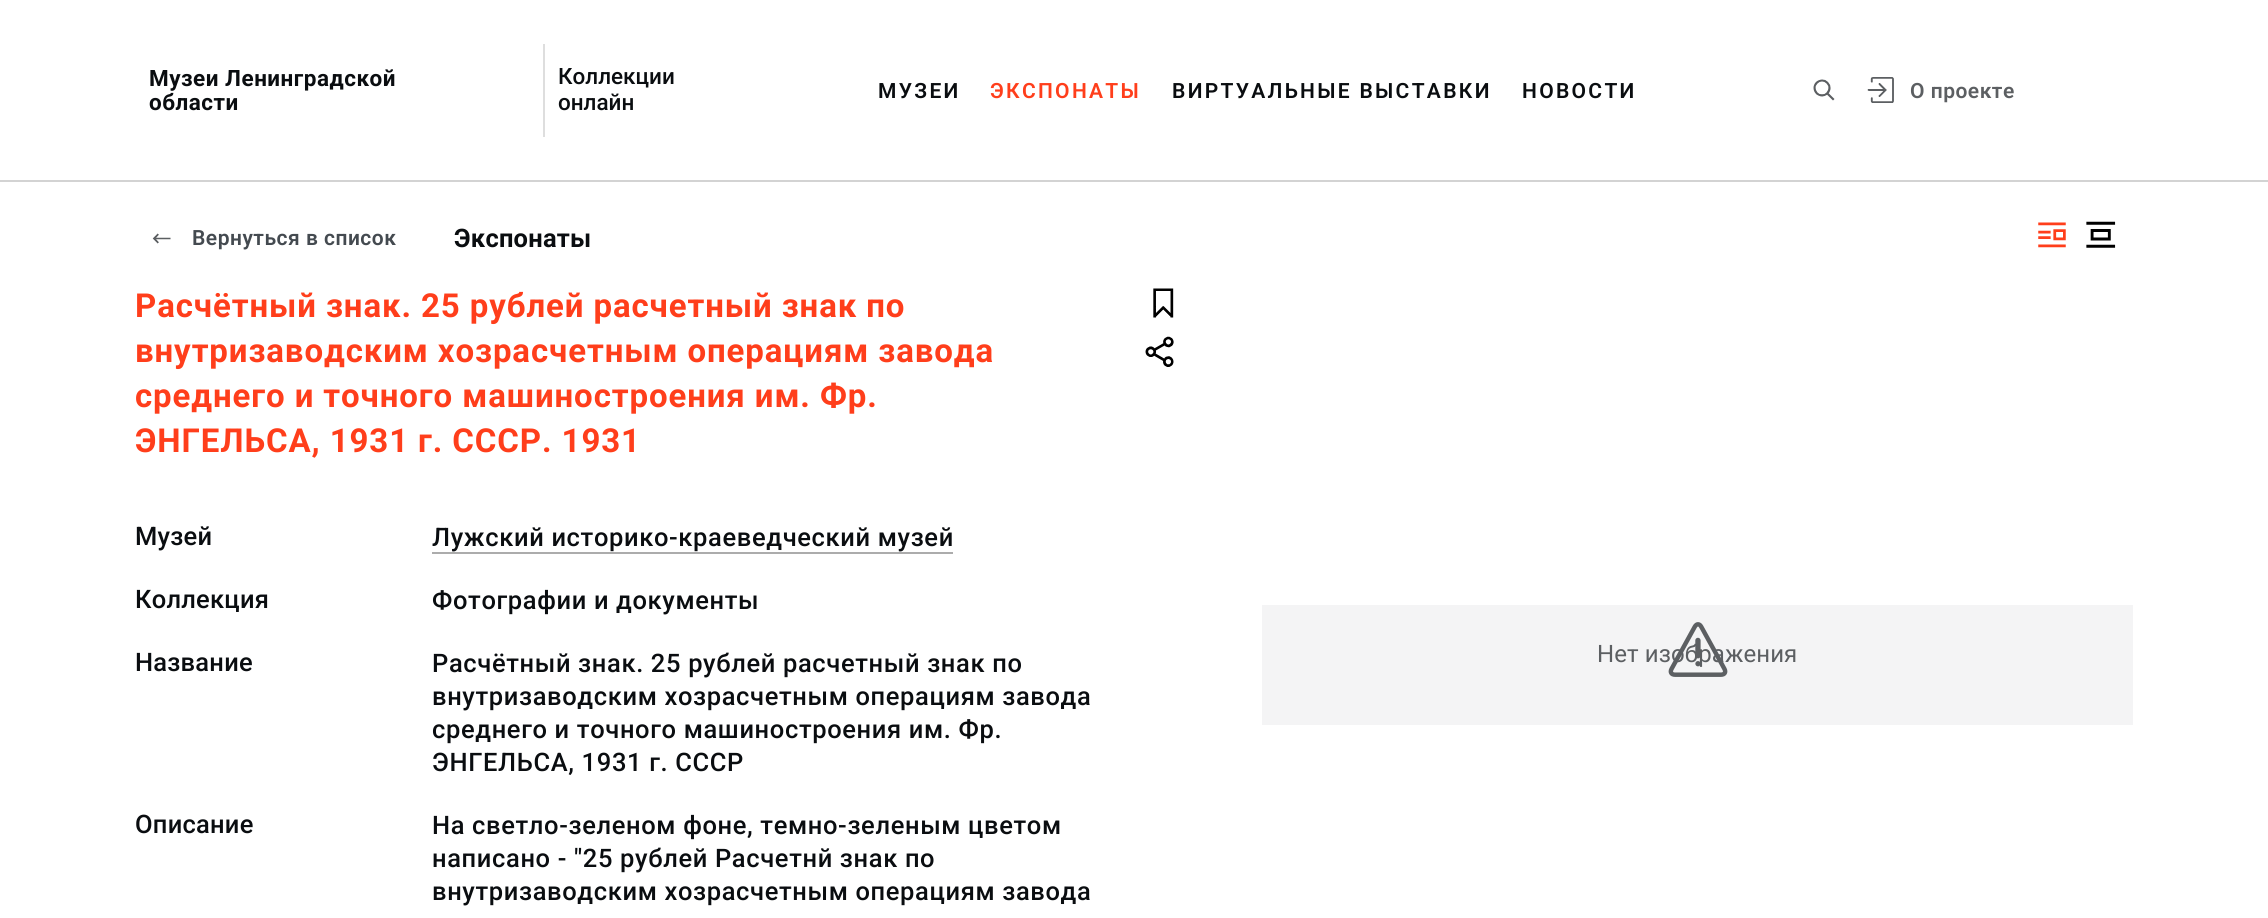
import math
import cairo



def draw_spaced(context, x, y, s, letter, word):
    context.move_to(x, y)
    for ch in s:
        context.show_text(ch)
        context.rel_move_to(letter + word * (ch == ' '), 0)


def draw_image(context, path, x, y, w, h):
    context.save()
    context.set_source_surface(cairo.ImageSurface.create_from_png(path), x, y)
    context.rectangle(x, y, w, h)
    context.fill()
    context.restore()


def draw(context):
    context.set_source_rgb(1, 1, 1)
    context.paint()
    context.set_source_rgb(211 / 255, 211 / 255, 211 / 255)
    context.rectangle(0, 180, 2268, 2)
    context.fill()
    context.set_source_rgb(222 / 255, 222 / 255, 222 / 255)
    context.rectangle(543, 44, 2, 93)
    context.fill()
    draw_image(context, "images/1.png", 1813, 79, 22, 22)
    draw_image(context, "images/2.png", 1867, 77, 27, 26)
    draw_image(context, "images/3.png", 152, 233, 19, 11)
    draw_image(context, "images/4.png", 2038, 222, 28, 26)
    draw_image(context, "images/5.png", 2086, 221, 30, 27)
    draw_image(context, "images/6.png", 1153, 288, 21, 30)
    draw_image(context, "images/7.png", 1145, 336, 29, 31)
    context.set_source_rgb(172 / 255, 172 / 255, 172 / 255)
    context.rectangle(432, 552, 521, 2)
    context.fill()
    context.set_source_rgb(244 / 255, 244 / 255, 245 / 255)
    context.rectangle(1262, 605, 871, 120)
    context.fill()
    context.select_font_face("Roboto", cairo.FontSlant.NORMAL, cairo.FontWeight.BOLD)
    context.set_font_size(22.5)
    context.set_source_rgb(10 / 255, 13 / 255, 16 / 255)
    draw_spaced(context, 149, 86, "Музеи Ленинградской", 0.5, 0)
    draw_spaced(context, 149, 110, "области", 0.5, 0)
    context.select_font_face("Roboto Medium")
    context.move_to(558, 84)
    context.show_text("Коллекции")
    context.move_to(558, 110)
    context.show_text("онлайн")
    context.select_font_face("Roboto SemiBold")
    context.set_font_size(21)
    draw_spaced(context, 878, 98, "МУЗЕИ", 2.3, 0)
    context.set_source_rgb(1, 62 / 255, 27 / 255)
    draw_spaced(context, 990, 98, "ЭКСПОНАТЫ", 2.3, 0)
    context.set_source_rgb(10 / 255, 13 / 255, 16 / 255)
    draw_spaced(context, 1172, 98, "ВИРТУАЛЬНЫЕ ВЫСТАВКИ", 2.3, 0)
    draw_spaced(context, 1522, 98, "НОВОСТИ", 2.3, 0)
    context.set_source_rgb(92 / 255, 95 / 255, 98 / 255)
    draw_spaced(context, 1910, 98, "О проекте", 0.5, 0)
    context.set_source_rgb(68 / 255, 74 / 255, 80 / 255)
    draw_spaced(context, 192, 245, "Вернуться в список", 0.5, 0)
    context.select_font_face("Roboto", cairo.FontSlant.NORMAL, cairo.FontWeight.BOLD)
    context.set_font_size(25.5)
    context.set_source_rgb(10 / 255, 13 / 255, 16 / 255)
    draw_spaced(context, 454, 247, "Экспонаты", 0.25, 0)
    context.set_font_size(33)
    context.set_source_rgb(1, 62 / 255, 27 / 255)
    draw_spaced(context, 135, 317, "Расчётный знак. 25 рублей расчетный знак по", 0.9, 0)
    draw_spaced(context, 135, 362, "внутризаводским хозрасчетным операциям завода", 0.9, 0)
    draw_spaced(context, 135, 407, "среднего и точного машиностроения им. Фр.", 0.9, 0)
    draw_spaced(context, 135, 452, "ЭНГЕЛЬСА, 1931 г. СССР. 1931", 0.9, 0)
    context.select_font_face("Roboto Medium")
    context.set_font_size(25.5)
    context.set_source_rgb(10 / 255, 13 / 255, 16 / 255)
    draw_spaced(context, 135, 545, "Музей", 0.25, 0)
    draw_spaced(context, 432, 546, "Лужский историко-краеведческий музей", 0.65, 0)
    draw_spaced(context, 135, 608, "Коллекция", 0.25, 0)
    draw_spaced(context, 432, 609, "Фотографии и документы", 0.65, 0)
    draw_spaced(context, 135, 671, "Название", 0.25, 0)
    draw_spaced(context, 432, 672, "Расчётный знак. 25 рублей расчетный знак по", 0.65, 0)
    draw_spaced(context, 432, 705, "внутризаводским хозрасчетным операциям завода", 0.65, 0)
    draw_spaced(context, 432, 738, "среднего и точного машиностроения им. Фр.", 0.65, 0)
    draw_spaced(context, 432, 771, "ЭНГЕЛЬСА, 1931 г. СССР", 0.65, 0)
    draw_spaced(context, 135, 833, "Описание", 0.25, 0)
    draw_spaced(context, 432, 834, "На светло-зеленом фоне, темно-зеленым цветом", 0.65, 0)
    draw_spaced(context, 432, 867, "написано - \"25 рублей Расчетнй знак по", 0.65, 0)
    draw_spaced(context, 432, 900, "внутризаводским хозрасчетным операциям завода", 0.65, 0)
    context.select_font_face("Roboto")
    context.set_font_size(24)
    context.set_source_rgb(92 / 255, 95 / 255, 98 / 255)
    draw_spaced(context, 1597, 662, "Нет изображения", 0.1, 0)
    draw_image(context, "images/8.png", 1668, 622, 60, 55)


surface = cairo.ImageSurface(cairo.Format.RGB24, 2268, 918)
context = cairo.Context(surface)
options = cairo.FontOptions()
options.set_hint_metrics(cairo.HintMetrics.OFF)
options.set_hint_style(cairo.HintStyle.NONE)
context.set_font_options(options)
context.set_miter_limit(4)
draw(context)
surface.write_to_png("out.png")
